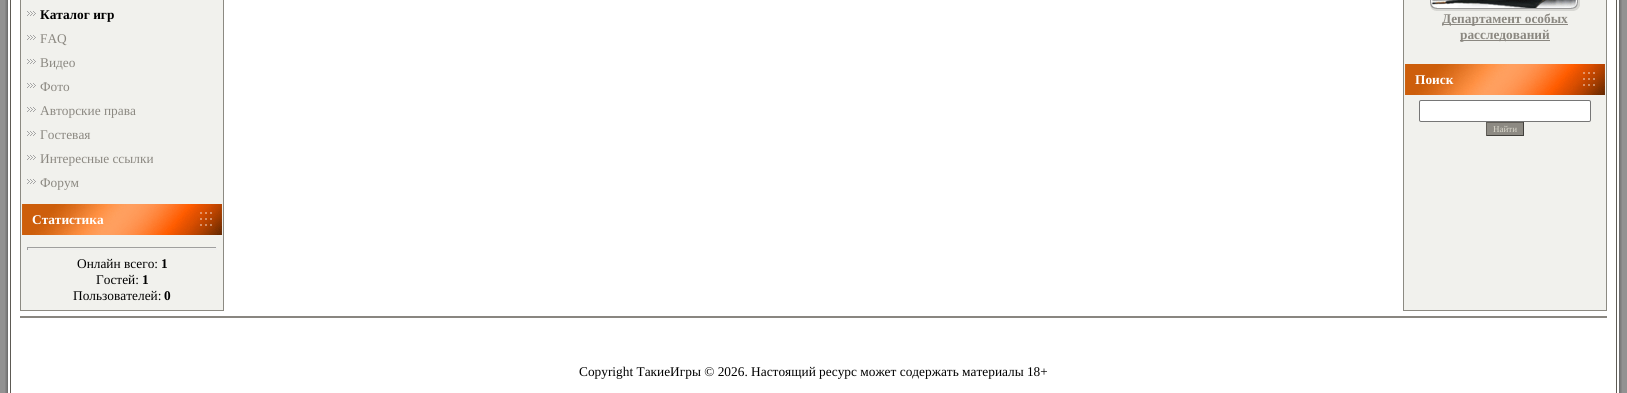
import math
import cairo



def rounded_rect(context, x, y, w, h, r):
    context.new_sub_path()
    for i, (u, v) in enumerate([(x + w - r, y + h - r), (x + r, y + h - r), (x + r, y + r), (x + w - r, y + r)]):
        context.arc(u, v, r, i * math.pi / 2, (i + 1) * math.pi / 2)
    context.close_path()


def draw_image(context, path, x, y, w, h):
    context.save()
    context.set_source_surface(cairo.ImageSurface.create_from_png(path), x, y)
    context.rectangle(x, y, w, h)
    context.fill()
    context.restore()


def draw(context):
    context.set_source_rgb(146 / 255, 146 / 255, 146 / 255)
    context.paint()
    draw_image(context, "images/1.png", 5, 0, 15, 393)
    context.set_source_rgb(1, 1, 1)
    context.rectangle(20, 0, 1587, 316)
    context.fill()
    context.set_source_rgb(241 / 255, 241 / 255, 237 / 255)
    context.rectangle(20.5, -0.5, 203, 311)
    context.fill_preserve()
    context.set_source_rgb(140 / 255, 138 / 255, 130 / 255)
    context.set_line_width(1)
    context.stroke()
    draw_image(context, "images/2.png", 27, 11, 9, 5)
    draw_image(context, "images/2.png", 27, 35, 9, 5)
    draw_image(context, "images/2.png", 27, 59, 9, 5)
    draw_image(context, "images/2.png", 27, 83, 9, 5)
    draw_image(context, "images/2.png", 27, 107, 9, 5)
    draw_image(context, "images/2.png", 27, 131, 9, 5)
    draw_image(context, "images/2.png", 27, 155, 9, 5)
    draw_image(context, "images/2.png", 27, 179, 9, 5)
    draw_image(context, "images/3.png", 22, 204, 200, 31)
    context.set_source_rgb(159 / 255, 159 / 255, 159 / 255)
    context.rectangle(27, 247, 190, 1)
    context.fill()
    context.set_source_rgb(238 / 255, 238 / 255, 238 / 255)
    context.rectangle(216, 247, 1, 3)
    context.fill()
    context.rectangle(27, 249, 190, 1)
    context.fill()
    context.set_source_rgb(159 / 255, 159 / 255, 159 / 255)
    context.rectangle(27, 247, 1, 3)
    context.fill()
    context.set_source_rgb(241 / 255, 241 / 255, 237 / 255)
    context.rectangle(1403.5, -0.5, 203, 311)
    context.fill_preserve()
    context.set_source_rgb(140 / 255, 138 / 255, 130 / 255)
    context.stroke()
    draw_image(context, "images/4.png", 1430, 0, 150, 11)
    context.set_source_rgb(139 / 255, 136 / 255, 129 / 255)
    context.rectangle(1442, 24, 126, 1)
    context.fill()
    context.rectangle(1460, 40, 90, 1)
    context.fill()
    draw_image(context, "images/3.png", 1405, 64, 200, 31)
    context.set_source_rgb(1, 1, 1)
    rounded_rect(context, 1419.5, 100.5, 171, 21, 1.5)
    context.fill_preserve()
    context.set_source_rgb(118 / 255, 118 / 255, 118 / 255)
    context.stroke()
    context.set_source_rgb(141 / 255, 138 / 255, 131 / 255)
    context.rectangle(1487, 123, 36, 12)
    context.fill()
    context.set_source_rgb(97 / 255, 94 / 255, 88 / 255)
    context.rectangle(1486, 122, 38, 1)
    context.fill()
    context.set_source_rgb(65 / 255, 63 / 255, 59 / 255)
    context.rectangle(1523, 122, 1, 14)
    context.fill()
    context.rectangle(1486, 135, 38, 1)
    context.fill()
    context.set_source_rgb(97 / 255, 94 / 255, 88 / 255)
    context.rectangle(1486, 122, 1, 14)
    context.fill()
    context.set_source_rgb(137 / 255, 134 / 255, 128 / 255)
    context.rectangle(20, 316, 1587, 2)
    context.fill()
    context.set_source_rgb(1, 1, 1)
    context.rectangle(20, 318, 1587, 75)
    context.fill()
    draw_image(context, "images/5.png", 1607, 0, 15, 393)
    context.select_font_face("Liberation Serif", cairo.FontSlant.NORMAL, cairo.FontWeight.BOLD)
    context.set_font_size(13.35)
    context.set_source_rgb(0, 0, 0)
    context.move_to(40, 19)
    context.show_text("Каталог игр")
    context.select_font_face("Liberation Serif")
    context.set_source_rgb(139 / 255, 136 / 255, 129 / 255)
    context.move_to(40, 43)
    context.show_text("FAQ")
    context.move_to(40, 67)
    context.show_text("Видео")
    context.move_to(40, 91)
    context.show_text("Фото")
    context.move_to(40, 115)
    context.show_text("Авторские права")
    context.move_to(40, 139)
    context.show_text("Гостевая")
    context.move_to(40, 163)
    context.show_text("Интересные ссылки")
    context.move_to(40, 187)
    context.show_text("Форум")
    context.select_font_face("Liberation Serif", cairo.FontSlant.NORMAL, cairo.FontWeight.BOLD)
    context.set_source_rgb(1, 1, 1)
    context.move_to(32, 224)
    context.show_text("Статистика")
    context.select_font_face("Liberation Serif")
    context.set_source_rgb(0, 0, 0)
    context.move_to(77, 268)
    context.show_text("Онлайн всего:")
    context.select_font_face("Liberation Serif", cairo.FontSlant.NORMAL, cairo.FontWeight.BOLD)
    context.move_to(161, 268)
    context.show_text("1")
    context.select_font_face("Liberation Serif")
    context.move_to(96, 284)
    context.show_text("Гостей:")
    context.select_font_face("Liberation Serif", cairo.FontSlant.NORMAL, cairo.FontWeight.BOLD)
    context.move_to(142, 284)
    context.show_text("1")
    context.select_font_face("Liberation Serif")
    context.move_to(73, 300)
    context.show_text("Пользователей:")
    context.select_font_face("Liberation Serif", cairo.FontSlant.NORMAL, cairo.FontWeight.BOLD)
    context.move_to(164, 300)
    context.show_text("0")
    context.set_source_rgb(139 / 255, 136 / 255, 129 / 255)
    context.move_to(1442, 23)
    context.show_text("Департамент особых")
    context.move_to(1460, 39)
    context.show_text("расследований")
    context.set_source_rgb(1, 1, 1)
    context.move_to(1415, 84)
    context.show_text("Поиск")
    context.select_font_face("Liberation Serif")
    context.set_font_size(9)
    context.set_source_rgb(218 / 255, 215 / 255, 204 / 255)
    context.move_to(1493, 132)
    context.show_text("Найти")
    context.set_font_size(13.35)
    context.set_source_rgb(0, 0, 0)
    context.move_to(579, 376)
    context.show_text("Copyright ТакиеИгры © 2026. Настоящий ресурс может содержать материалы 18+")


surface = cairo.ImageSurface(cairo.Format.RGB24, 1627, 393)
context = cairo.Context(surface)
options = cairo.FontOptions()
options.set_hint_metrics(cairo.HintMetrics.OFF)
options.set_hint_style(cairo.HintStyle.NONE)
context.set_font_options(options)
context.set_miter_limit(4)
draw(context)
surface.write_to_png("out.png")
